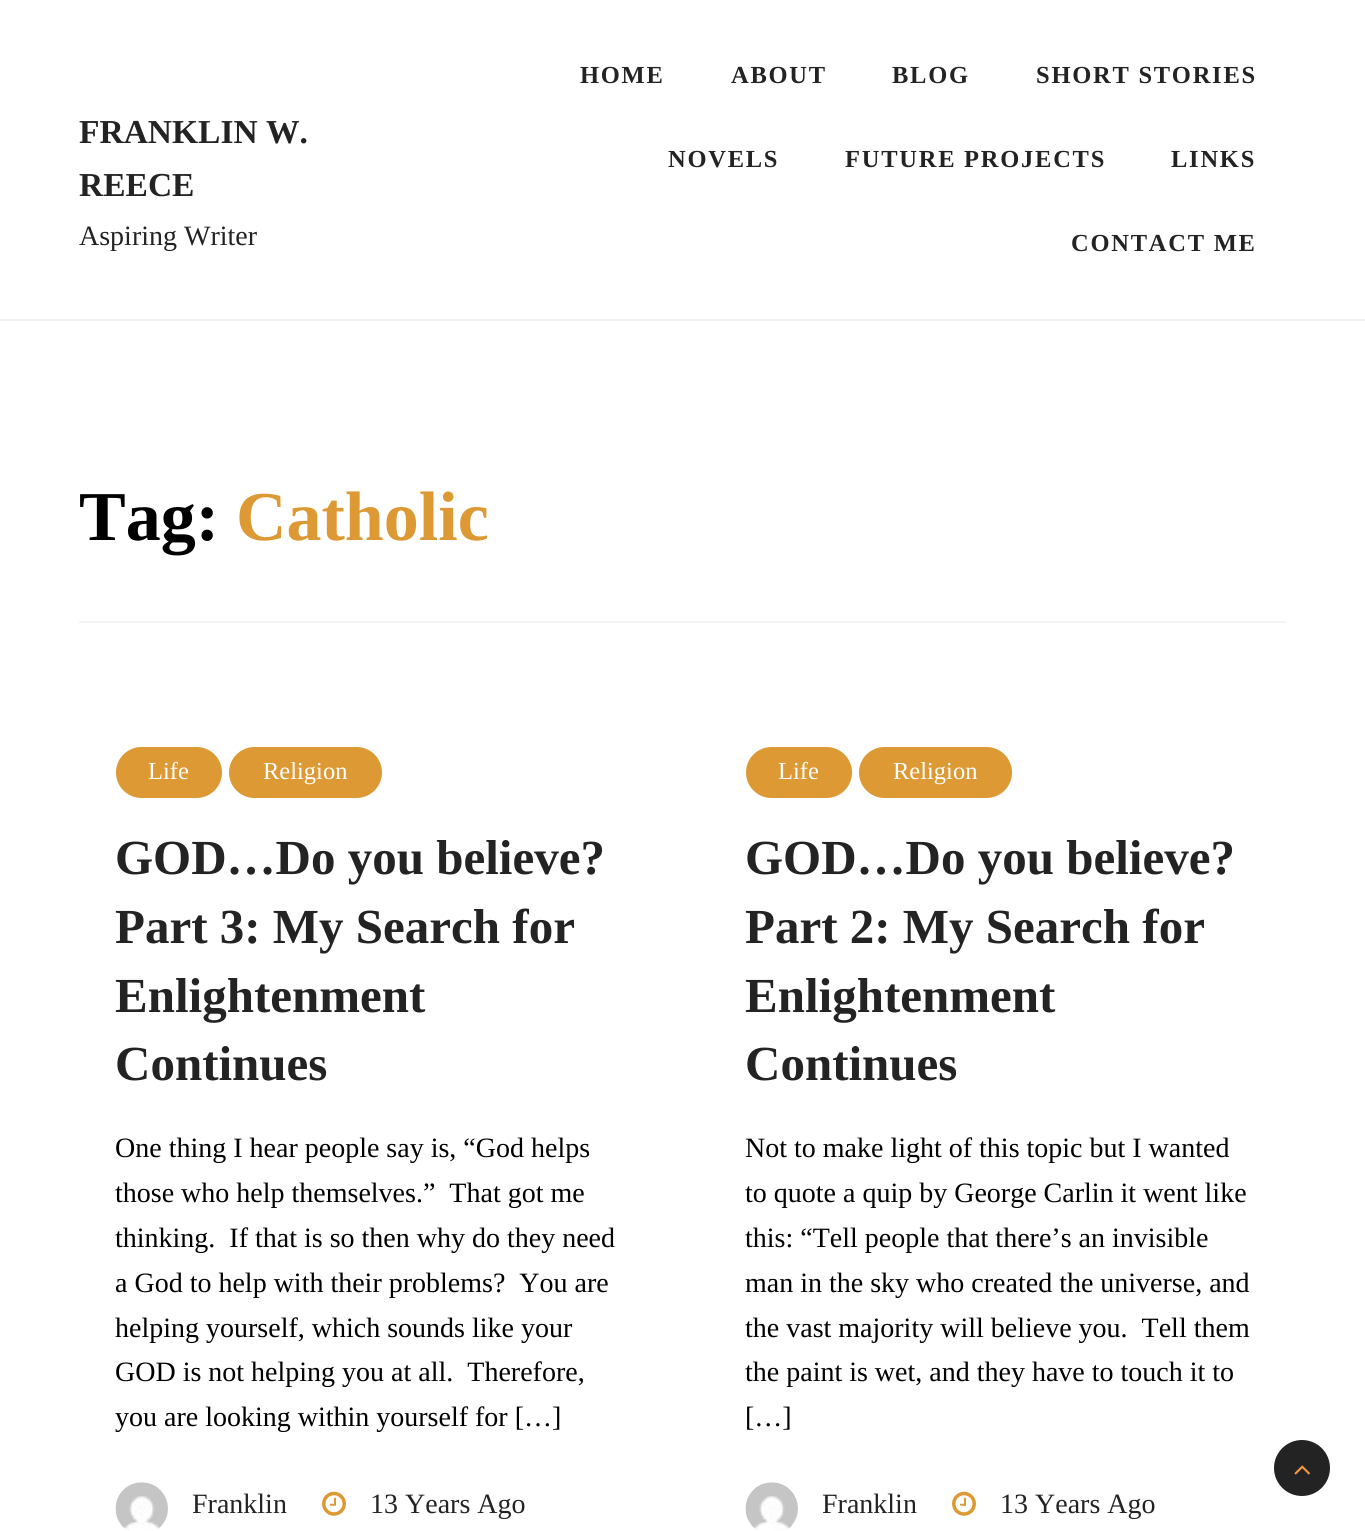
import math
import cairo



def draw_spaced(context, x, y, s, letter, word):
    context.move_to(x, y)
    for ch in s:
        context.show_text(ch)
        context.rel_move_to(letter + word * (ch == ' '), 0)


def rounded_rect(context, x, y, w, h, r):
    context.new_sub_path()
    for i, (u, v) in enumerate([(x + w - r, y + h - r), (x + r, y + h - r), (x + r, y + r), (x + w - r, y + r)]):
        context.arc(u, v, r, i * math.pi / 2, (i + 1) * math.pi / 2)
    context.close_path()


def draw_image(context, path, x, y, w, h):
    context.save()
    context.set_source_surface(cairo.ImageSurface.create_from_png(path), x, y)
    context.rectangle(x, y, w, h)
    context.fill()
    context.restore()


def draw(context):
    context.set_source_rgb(1, 1, 1)
    context.paint()
    context.set_source_rgb(241 / 255, 241 / 255, 241 / 255)
    context.rectangle(0, 319, 1365, 2)
    context.fill()
    context.set_source_rgb(243 / 255, 243 / 255, 248 / 255)
    context.rectangle(79, 621, 1207, 2)
    context.fill()
    context.set_source_rgb(221 / 255, 153 / 255, 51 / 255)
    rounded_rect(context, 116, 747, 106, 51, 25.5)
    context.fill()
    rounded_rect(context, 229, 747, 153, 51, 25.5)
    context.fill()
    draw_image(context, "images/1.png", 115, 1482, 53, 49)
    draw_image(context, "images/2.png", 322, 1491, 24, 25)
    rounded_rect(context, 746, 747, 106, 51, 25.5)
    context.fill()
    rounded_rect(context, 859, 747, 153, 51, 25.5)
    context.fill()
    draw_image(context, "images/3.png", 745, 1482, 53, 49)
    draw_image(context, "images/2.png", 952, 1491, 24, 25)
    context.set_source_rgb(36 / 255, 35 / 255, 35 / 255)
    context.arc(1302, 1468, 28, 0, 2 * math.pi)
    context.fill()
    draw_image(context, "images/4.png", 1294, 1465, 16, 10)
    context.select_font_face("Liberation Serif", cairo.FontSlant.NORMAL, cairo.FontWeight.BOLD)
    context.set_font_size(33.5)
    context.move_to(79, 143)
    context.show_text("FRANKLIN W.")
    context.move_to(79, 196)
    context.show_text("REECE")
    context.select_font_face("Liberation Serif")
    context.set_font_size(28)
    context.move_to(79, 245)
    context.show_text("Aspiring Writer")
    context.select_font_face("Liberation Serif", cairo.FontSlant.NORMAL, cairo.FontWeight.BOLD)
    context.set_font_size(24.5)
    draw_spaced(context, 580, 83, "HOME", 1.75, 0)
    draw_spaced(context, 731, 83, "ABOUT", 1.75, 0)
    draw_spaced(context, 892, 83, "BLOG", 1.75, 0)
    draw_spaced(context, 1036, 83, "SHORT STORIES", 1.75, 0)
    draw_spaced(context, 668, 167, "NOVELS", 1.75, 0)
    draw_spaced(context, 845, 167, "FUTURE PROJECTS", 1.75, 0)
    draw_spaced(context, 1171, 167, "LINKS", 1.75, 0)
    draw_spaced(context, 1071, 251, "CONTACT ME", 1.75, 0)
    context.set_font_size(70)
    context.set_source_rgb(0, 0, 0)
    context.move_to(79, 540)
    context.show_text("Tag:")
    context.set_source_rgb(221 / 255, 153 / 255, 51 / 255)
    context.move_to(236, 540)
    context.show_text("Catholic")
    context.select_font_face("Liberation Serif")
    context.set_font_size(24.5)
    context.set_source_rgb(1, 1, 1)
    context.move_to(148, 779)
    context.show_text("Life")
    context.move_to(263, 779)
    context.show_text("Religion")
    context.select_font_face("Liberation Serif", cairo.FontSlant.NORMAL, cairo.FontWeight.BOLD)
    context.set_font_size(49)
    context.set_source_rgb(36 / 255, 35 / 255, 35 / 255)
    context.move_to(115, 874)
    context.show_text("GOD…Do you believe?")
    context.move_to(115, 943)
    context.show_text("Part 3: My Search for")
    context.move_to(115, 1012)
    context.show_text("Enlightenment")
    context.move_to(115, 1080)
    context.show_text("Continues")
    context.select_font_face("Liberation Serif")
    context.set_font_size(28)
    context.set_source_rgb(0, 0, 0)
    context.move_to(115, 1157)
    context.show_text("One thing I hear people say is, “God helps")
    context.move_to(115, 1202)
    context.show_text("those who help themselves.”  That got me")
    context.move_to(115, 1247)
    context.show_text("thinking.  If that is so then why do they need")
    context.move_to(115, 1292)
    context.show_text("a God to help with their problems?  You are")
    context.move_to(115, 1337)
    context.show_text("helping yourself, which sounds like your")
    context.move_to(115, 1381)
    context.show_text("GOD is not helping you at all.  Therefore,")
    context.move_to(115, 1426)
    context.show_text("you are looking within yourself for […]")
    context.set_source_rgb(36 / 255, 35 / 255, 35 / 255)
    context.move_to(192, 1513)
    context.show_text("Franklin")
    context.move_to(370, 1513)
    context.show_text("13 Years Ago")
    context.set_font_size(24.5)
    context.set_source_rgb(1, 1, 1)
    context.move_to(778, 779)
    context.show_text("Life")
    context.move_to(893, 779)
    context.show_text("Religion")
    context.select_font_face("Liberation Serif", cairo.FontSlant.NORMAL, cairo.FontWeight.BOLD)
    context.set_font_size(49)
    context.set_source_rgb(36 / 255, 35 / 255, 35 / 255)
    context.move_to(745, 874)
    context.show_text("GOD…Do you believe?")
    context.move_to(745, 943)
    context.show_text("Part 2: My Search for")
    context.move_to(745, 1012)
    context.show_text("Enlightenment")
    context.move_to(745, 1080)
    context.show_text("Continues")
    context.select_font_face("Liberation Serif")
    context.set_font_size(28)
    context.set_source_rgb(0, 0, 0)
    context.move_to(745, 1157)
    context.show_text("Not to make light of this topic but I wanted")
    context.move_to(745, 1202)
    context.show_text("to quote a quip by George Carlin it went like")
    context.move_to(745, 1247)
    context.show_text("this: “Tell people that there’s an invisible")
    context.move_to(745, 1292)
    context.show_text("man in the sky who created the universe, and")
    context.move_to(745, 1337)
    context.show_text("the vast majority will believe you.  Tell them")
    context.move_to(745, 1381)
    context.show_text("the paint is wet, and they have to touch it to")
    context.move_to(745, 1426)
    context.show_text("[…]")
    context.set_source_rgb(36 / 255, 35 / 255, 35 / 255)
    context.move_to(822, 1513)
    context.show_text("Franklin")
    context.move_to(1000, 1513)
    context.show_text("13 Years Ago")


surface = cairo.ImageSurface(cairo.Format.RGB24, 1365, 1531)
context = cairo.Context(surface)
options = cairo.FontOptions()
options.set_hint_metrics(cairo.HintMetrics.OFF)
options.set_hint_style(cairo.HintStyle.NONE)
context.set_font_options(options)
context.set_miter_limit(4)
draw(context)
surface.write_to_png("out.png")
